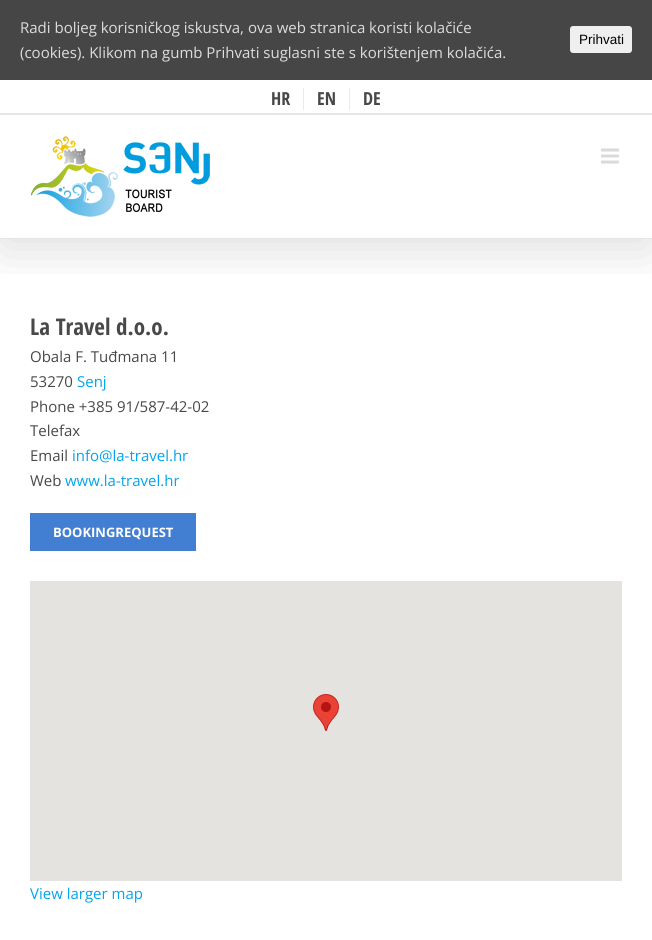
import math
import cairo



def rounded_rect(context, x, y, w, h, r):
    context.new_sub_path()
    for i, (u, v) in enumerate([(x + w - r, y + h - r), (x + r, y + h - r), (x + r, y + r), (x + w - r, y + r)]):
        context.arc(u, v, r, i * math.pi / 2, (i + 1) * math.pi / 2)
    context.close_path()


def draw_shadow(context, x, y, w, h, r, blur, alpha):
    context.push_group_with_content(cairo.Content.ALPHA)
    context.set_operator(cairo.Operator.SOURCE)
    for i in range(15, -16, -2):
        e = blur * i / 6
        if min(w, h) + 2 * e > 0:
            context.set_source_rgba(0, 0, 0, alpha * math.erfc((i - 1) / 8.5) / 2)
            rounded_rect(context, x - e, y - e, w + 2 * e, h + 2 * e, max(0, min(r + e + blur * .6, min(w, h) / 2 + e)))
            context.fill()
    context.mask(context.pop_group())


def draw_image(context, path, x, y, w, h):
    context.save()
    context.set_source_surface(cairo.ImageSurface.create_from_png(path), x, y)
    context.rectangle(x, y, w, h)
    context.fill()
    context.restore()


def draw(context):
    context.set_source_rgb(1, 1, 1)
    context.paint()
    context.save()
    context.rectangle(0, 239, 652, 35)
    context.clip()
    context.set_source_rgb(0, 0, 0)
    draw_shadow(context, 2, 92, 648, 155, 0, 25, 0.14)
    context.restore()
    context.set_source_rgb(70 / 255, 70 / 255, 70 / 255)
    context.rectangle(0, 0, 652, 80)
    context.fill()
    context.set_source_rgb(239 / 255, 239 / 255, 239 / 255)
    rounded_rect(context, 570, 26, 62, 27, 3)
    context.fill()
    context.set_source_rgb(229 / 255, 229 / 255, 229 / 255)
    context.rectangle(0, 113, 652, 2)
    context.fill()
    context.set_source_rgb(234 / 255, 234 / 255, 234 / 255)
    context.rectangle(303, 88, 1, 22)
    context.fill()
    context.rectangle(349, 88, 1, 22)
    context.fill()
    context.set_source_rgb(229 / 255, 229 / 255, 229 / 255)
    context.rectangle(0, 238, 652, 1)
    context.fill()
    draw_image(context, "images/1.png", 31, 136, 179, 81)
    draw_image(context, "images/2.png", 601, 148, 18, 16)
    context.set_source_rgb(66 / 255, 126 / 255, 209 / 255)
    context.rectangle(30, 513, 166, 38)
    context.fill()
    context.set_source_rgb(229 / 255, 227 / 255, 223 / 255)
    context.rectangle(30, 581, 592, 300)
    context.fill()
    draw_image(context, "images/3.png", 313, 694, 26, 37)
    context.select_font_face("Open Sans")
    context.set_font_size(15)
    context.set_source_rgb(221 / 255, 221 / 255, 221 / 255)
    context.move_to(20, 33)
    context.show_text("Radi boljeg korisničkog iskustva, ova web stranica koristi kolačiće")
    context.move_to(20, 58)
    context.show_text("(cookies). Klikom na gumb Prihvati suglasni ste s korištenjem kolačića.")
    context.select_font_face("Liberation Sans")
    context.set_font_size(13.5)
    context.set_source_rgb(0, 0, 0)
    context.move_to(579, 44)
    context.show_text("Prihvati")
    context.select_font_face("Open Sans Condensed", cairo.FontSlant.NORMAL, cairo.FontWeight.BOLD)
    context.set_font_size(18)
    context.set_source_rgb(72 / 255, 72 / 255, 72 / 255)
    context.move_to(271, 105)
    context.show_text("HR")
    context.move_to(317, 105)
    context.show_text("EN")
    context.move_to(363, 105)
    context.show_text("DE")
    context.set_font_size(23)
    context.move_to(30, 335)
    context.show_text("La Travel d.o.o.")
    context.select_font_face("Open Sans")
    context.set_font_size(15)
    context.move_to(30, 362)
    context.show_text("Obala F. Tuđmana 11")
    context.move_to(30, 387)
    context.show_text("53270")
    context.set_source_rgb(3 / 255, 164 / 255, 237 / 255)
    context.move_to(77, 387)
    context.show_text("Senj")
    context.set_source_rgb(72 / 255, 72 / 255, 72 / 255)
    context.move_to(30, 412)
    context.show_text("Phone +385 91/587-42-02")
    context.move_to(30, 436)
    context.show_text("Telefax")
    context.move_to(30, 461)
    context.show_text("Email")
    context.set_source_rgb(3 / 255, 164 / 255, 237 / 255)
    context.move_to(72, 461)
    context.show_text("info@la-travel.hr")
    context.set_source_rgb(72 / 255, 72 / 255, 72 / 255)
    context.move_to(30, 486)
    context.show_text("Web")
    context.set_source_rgb(3 / 255, 164 / 255, 237 / 255)
    context.move_to(65, 486)
    context.show_text("www.la-travel.hr")
    context.select_font_face("Open Sans", cairo.FontSlant.NORMAL, cairo.FontWeight.BOLD)
    context.set_font_size(13)
    context.set_source_rgb(1, 1, 1)
    context.move_to(53, 537)
    context.show_text("BOOKINGREQUEST")
    context.select_font_face("Open Sans")
    context.set_font_size(15)
    context.set_source_rgb(3 / 255, 164 / 255, 237 / 255)
    context.move_to(30, 899)
    context.show_text("View larger map")


surface = cairo.ImageSurface(cairo.Format.RGB24, 652, 940)
context = cairo.Context(surface)
options = cairo.FontOptions()
options.set_hint_metrics(cairo.HintMetrics.OFF)
options.set_hint_style(cairo.HintStyle.NONE)
context.set_font_options(options)
context.set_miter_limit(4)
draw(context)
surface.write_to_png("out.png")
